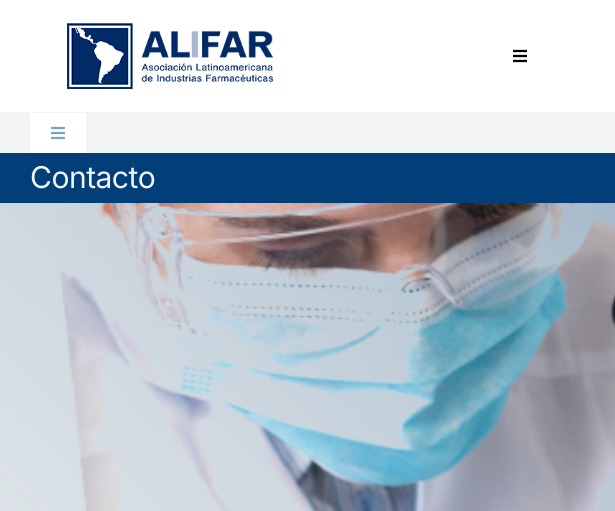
import math
import cairo



def draw_spaced(context, x, y, s, letter, word):
    context.move_to(x, y)
    for ch in s:
        context.show_text(ch)
        context.rel_move_to(letter + word * (ch == ' '), 0)


def draw_image(context, path, x, y, w, h):
    context.save()
    context.set_source_surface(cairo.ImageSurface.create_from_png(path), x, y)
    context.rectangle(x, y, w, h)
    context.fill()
    context.restore()


def draw(context):
    context.set_source_rgb(1, 1, 1)
    context.paint()
    draw_image(context, "images/1.png", 67, 23, 206, 66)
    draw_image(context, "images/2.png", 513, 49, 14, 14)
    context.set_source_rgb(242 / 255, 243 / 255, 245 / 255)
    context.rectangle(0, 112, 615, 41)
    context.fill()
    context.set_source_rgb(1, 1, 1)
    context.rectangle(30, 113, 56, 40)
    context.fill()
    draw_image(context, "images/3.png", 51, 126, 14, 14)
    context.set_source_rgb(2 / 255, 62 / 255, 119 / 255)
    context.rectangle(0, 153, 615, 50)
    context.fill()
    draw_image(context, "images/4.png", 0, 203, 615, 308)
    context.select_font_face("Inter")
    context.set_font_size(30)
    context.set_source_rgb(242 / 255, 243 / 255, 245 / 255)
    draw_spaced(context, 30, 188, "Contacto", -0.5, 0)


surface = cairo.ImageSurface(cairo.Format.RGB24, 615, 511)
context = cairo.Context(surface)
options = cairo.FontOptions()
options.set_hint_metrics(cairo.HintMetrics.OFF)
options.set_hint_style(cairo.HintStyle.NONE)
context.set_font_options(options)
context.set_miter_limit(4)
draw(context)
surface.write_to_png("out.png")
